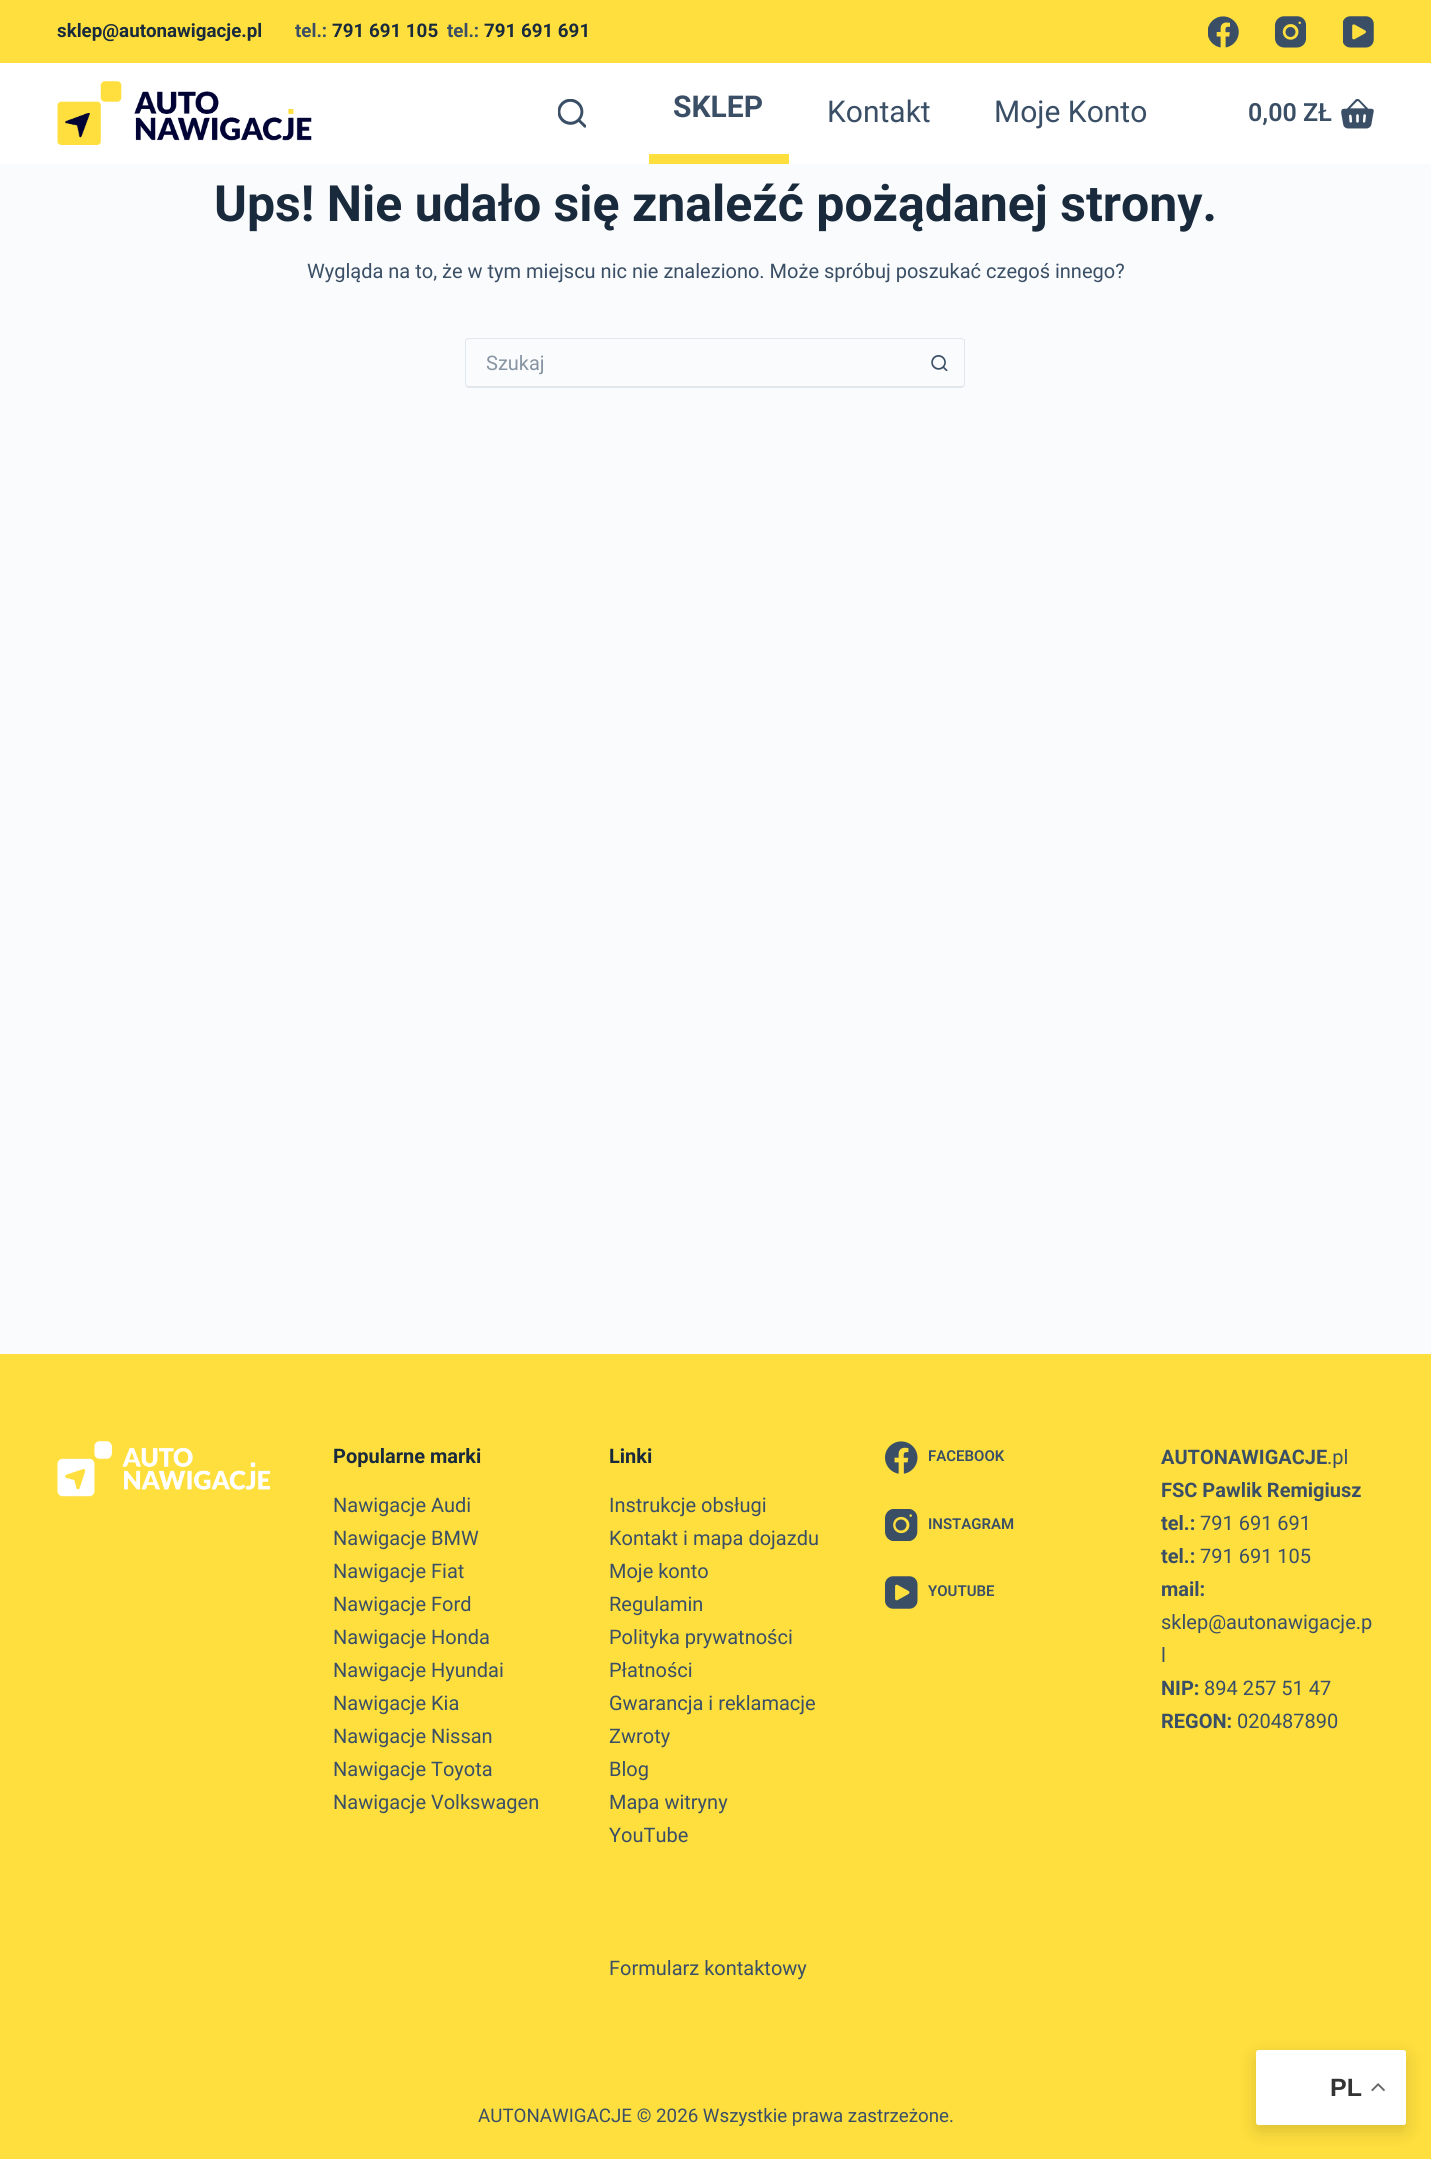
import math
import cairo



def rounded_rect(context, x, y, w, h, r):
    context.new_sub_path()
    for i, (u, v) in enumerate([(x + w - r, y + h - r), (x + r, y + h - r), (x + r, y + r), (x + w - r, y + r)]):
        context.arc(u, v, r, i * math.pi / 2, (i + 1) * math.pi / 2)
    context.close_path()


def draw_shadow(context, x, y, w, h, r, blur, alpha):
    context.push_group_with_content(cairo.Content.ALPHA)
    context.set_operator(cairo.Operator.SOURCE)
    for i in range(15, -16, -2):
        e = blur * i / 6
        if min(w, h) + 2 * e > 0:
            context.set_source_rgba(0, 0, 0, alpha * math.erfc((i - 1) / 8.5) / 2)
            rounded_rect(context, x - e, y - e, w + 2 * e, h + 2 * e, max(0, min(r + e + blur * .6, min(w, h) / 2 + e)))
            context.fill()
    context.mask(context.pop_group())


def draw_image(context, path, x, y, w, h):
    context.save()
    context.set_source_surface(cairo.ImageSurface.create_from_png(path), x, y)
    context.rectangle(x, y, w, h)
    context.fill()
    context.restore()


def draw(context):
    context.set_source_rgb(250 / 255, 251 / 255, 252 / 255)
    context.paint()
    context.set_source_rgb(1, 223 / 255, 62 / 255)
    context.rectangle(0, 0, 1431, 63)
    context.fill()
    draw_image(context, "images/1.png", 1208, 16, 31, 32)
    draw_image(context, "images/2.png", 1275, 16, 31, 32)
    draw_image(context, "images/3.png", 1343, 16, 31, 32)
    context.set_source_rgb(1, 1, 1)
    context.rectangle(0, 63, 1431, 101)
    context.fill()
    draw_image(context, "images/4.png", 57, 81, 255, 64)
    draw_image(context, "images/5.png", 558, 99, 28, 29)
    context.set_source_rgb(1, 223 / 255, 62 / 255)
    context.rectangle(649, 154, 140, 10)
    context.fill()
    draw_image(context, "images/6.png", 1341, 99, 33, 30)
    context.set_source_rgb(225 / 255, 232 / 255, 237 / 255)
    context.set_fill_rule(cairo.FillRule.EVEN_ODD)
    context.new_path()
    context.move_to(469, 338)
    context.line_to(915, 338)
    context.line_to(915, 388)
    context.line_to(469, 388)
    context.curve_to(467, 388, 465, 386, 465, 384)
    context.line_to(465, 341)
    context.curve_to(465, 339, 467, 338, 469, 338)
    context.close_path()
    context.move_to(469, 339)
    context.line_to(915, 339)
    context.line_to(915, 386)
    context.line_to(469, 386)
    context.curve_to(467, 386, 466, 385, 466, 384)
    context.line_to(466, 341)
    context.curve_to(466, 340, 467, 339, 469, 339)
    context.close_path()
    context.fill()
    context.new_path()
    context.move_to(915, 338)
    context.line_to(961, 338)
    context.curve_to(963, 338, 965, 339, 965, 341)
    context.line_to(965, 384)
    context.curve_to(965, 386, 963, 388, 961, 388)
    context.line_to(915, 388)
    context.close_path()
    context.move_to(915, 339)
    context.line_to(961, 339)
    context.curve_to(963, 339, 964, 340, 964, 341)
    context.line_to(964, 384)
    context.curve_to(964, 385, 963, 386, 961, 386)
    context.line_to(915, 386)
    context.close_path()
    context.fill()
    draw_image(context, "images/7.png", 931, 355, 17, 16)
    context.set_source_rgb(1, 223 / 255, 62 / 255)
    context.rectangle(0, 1354, 1431, 805)
    context.fill()
    draw_image(context, "images/8.png", 57, 1441, 213, 56)
    draw_image(context, "images/9.png", 885, 1441, 33, 33)
    draw_image(context, "images/10.png", 885, 1509, 33, 32)
    draw_image(context, "images/11.png", 885, 1576, 33, 33)
    context.set_source_rgb(0, 0, 0)
    draw_shadow(context, 1256, 2056, 150, 75, 2.5, 9.5, 0.15)
    context.set_source_rgb(1, 1, 1)
    rounded_rect(context, 1256, 2050, 150, 75, 2.5)
    context.fill()
    draw_image(context, "images/12.png", 1371, 2083, 14, 9)
    context.select_font_face("Roboto", cairo.FontSlant.NORMAL, cairo.FontWeight.BOLD)
    context.set_font_size(18.75)
    context.set_source_rgb(25 / 255, 42 / 255, 61 / 255)
    context.move_to(57, 37)
    context.show_text("sklep@autonawigacje.pl")
    context.set_source_rgb(58 / 255, 79 / 255, 102 / 255)
    context.move_to(295, 37)
    context.show_text("tel.:")
    context.set_source_rgb(25 / 255, 42 / 255, 61 / 255)
    context.move_to(332, 37)
    context.show_text("791 691 105")
    context.set_source_rgb(58 / 255, 79 / 255, 102 / 255)
    context.move_to(447, 37)
    context.show_text("tel.:")
    context.set_source_rgb(25 / 255, 42 / 255, 61 / 255)
    context.move_to(484, 37)
    context.show_text("791 691 691")
    context.set_font_size(30)
    context.set_source_rgb(58 / 255, 79 / 255, 102 / 255)
    context.move_to(673, 117)
    context.show_text("SKLEP")
    context.select_font_face("Roboto")
    context.move_to(827, 122)
    context.show_text("Kontakt")
    context.move_to(994, 122)
    context.show_text("Moje Konto")
    context.select_font_face("Roboto SemiBold")
    context.set_font_size(25)
    context.move_to(1248, 121)
    context.show_text("0,00 ZŁ")
    context.select_font_face("Roboto", cairo.FontSlant.NORMAL, cairo.FontWeight.BOLD)
    context.set_font_size(50)
    context.set_source_rgb(25 / 255, 42 / 255, 61 / 255)
    context.move_to(214, 221)
    context.show_text("Ups! Nie udało się znaleźć pożądanej strony.")
    context.select_font_face("Roboto")
    context.set_font_size(20)
    context.set_source_rgb(58 / 255, 79 / 255, 102 / 255)
    context.move_to(307, 278)
    context.show_text("Wygląda na to, że w tym miejscu nic nie znaleziono. Może spróbuj poszukać czegoś innego?")
    context.set_source_rgb(135 / 255, 148 / 255, 162 / 255)
    context.move_to(486, 370)
    context.show_text("Szukaj")
    context.select_font_face("Roboto", cairo.FontSlant.NORMAL, cairo.FontWeight.BOLD)
    context.set_source_rgb(25 / 255, 42 / 255, 61 / 255)
    context.move_to(333, 1463)
    context.show_text("Popularne marki")
    context.select_font_face("Roboto")
    context.set_source_rgb(58 / 255, 79 / 255, 102 / 255)
    context.move_to(333, 1512)
    context.show_text("Nawigacje Audi")
    context.move_to(333, 1545)
    context.show_text("Nawigacje BMW")
    context.move_to(333, 1578)
    context.show_text("Nawigacje Fiat")
    context.move_to(333, 1611)
    context.show_text("Nawigacje Ford")
    context.move_to(333, 1644)
    context.show_text("Nawigacje Honda")
    context.move_to(333, 1677)
    context.show_text("Nawigacje Hyundai")
    context.move_to(333, 1710)
    context.show_text("Nawigacje Kia")
    context.move_to(333, 1743)
    context.show_text("Nawigacje Nissan")
    context.move_to(333, 1776)
    context.show_text("Nawigacje Toyota")
    context.move_to(333, 1809)
    context.show_text("Nawigacje Volkswagen")
    context.select_font_face("Roboto", cairo.FontSlant.NORMAL, cairo.FontWeight.BOLD)
    context.set_source_rgb(25 / 255, 42 / 255, 61 / 255)
    context.move_to(609, 1463)
    context.show_text("Linki")
    context.select_font_face("Roboto")
    context.set_source_rgb(58 / 255, 79 / 255, 102 / 255)
    context.move_to(609, 1512)
    context.show_text("Instrukcje obsługi")
    context.move_to(609, 1545)
    context.show_text("Kontakt i mapa dojazdu")
    context.move_to(609, 1578)
    context.show_text("Moje konto")
    context.move_to(609, 1611)
    context.show_text("Regulamin")
    context.move_to(609, 1644)
    context.show_text("Polityka prywatności")
    context.move_to(609, 1677)
    context.show_text("Płatności")
    context.move_to(609, 1710)
    context.show_text("Gwarancja i reklamacje")
    context.move_to(609, 1743)
    context.show_text("Zwroty")
    context.move_to(609, 1776)
    context.show_text("Blog")
    context.move_to(609, 1809)
    context.show_text("Mapa witryny")
    context.move_to(609, 1842)
    context.show_text("YouTube")
    context.move_to(609, 1975)
    context.show_text("Formularz kontaktowy")
    context.select_font_face("Roboto SemiBold")
    context.set_font_size(15)
    context.move_to(928, 1461)
    context.show_text("FACEBOOK")
    context.move_to(928, 1529)
    context.show_text("INSTAGRAM")
    context.move_to(928, 1596)
    context.show_text("YOUTUBE")
    context.select_font_face("Roboto", cairo.FontSlant.NORMAL, cairo.FontWeight.BOLD)
    context.set_font_size(20)
    context.move_to(1161, 1464)
    context.show_text("AUTONAWIGACJE")
    context.select_font_face("Roboto")
    context.move_to(1327, 1464)
    context.show_text(".pl")
    context.select_font_face("Roboto", cairo.FontSlant.NORMAL, cairo.FontWeight.BOLD)
    context.move_to(1161, 1497)
    context.show_text("FSC Pawlik Remigiusz")
    context.move_to(1161, 1530)
    context.show_text("tel.:")
    context.select_font_face("Roboto")
    context.move_to(1200, 1530)
    context.show_text("791 691 691")
    context.select_font_face("Roboto", cairo.FontSlant.NORMAL, cairo.FontWeight.BOLD)
    context.move_to(1161, 1563)
    context.show_text("tel.:")
    context.select_font_face("Roboto")
    context.move_to(1200, 1563)
    context.show_text("791 691 105")
    context.select_font_face("Roboto", cairo.FontSlant.NORMAL, cairo.FontWeight.BOLD)
    context.move_to(1161, 1596)
    context.show_text("mail:")
    context.select_font_face("Roboto")
    context.move_to(1161, 1629)
    context.show_text("sklep@autonawigacje.p")
    context.move_to(1161, 1662)
    context.show_text("l")
    context.select_font_face("Roboto", cairo.FontSlant.NORMAL, cairo.FontWeight.BOLD)
    context.move_to(1161, 1695)
    context.show_text("NIP:")
    context.select_font_face("Roboto")
    context.move_to(1204, 1695)
    context.show_text("894 257 51 47")
    context.select_font_face("Roboto", cairo.FontSlant.NORMAL, cairo.FontWeight.BOLD)
    context.move_to(1161, 1728)
    context.show_text("REGON:")
    context.select_font_face("Roboto")
    context.move_to(1237, 1728)
    context.show_text("020487890")
    context.set_font_size(18.75)
    context.move_to(478, 2122)
    context.show_text("AUTONAWIGACJE © 2026 Wszystkie prawa zastrzeżone.")
    context.select_font_face("Liberation Sans", cairo.FontSlant.NORMAL, cairo.FontWeight.BOLD)
    context.set_font_size(25)
    context.set_source_rgb(51 / 255, 51 / 255, 51 / 255)
    context.move_to(1330, 2096)
    context.show_text("PL")


surface = cairo.ImageSurface(cairo.Format.RGB24, 1431, 2159)
context = cairo.Context(surface)
options = cairo.FontOptions()
options.set_hint_metrics(cairo.HintMetrics.OFF)
options.set_hint_style(cairo.HintStyle.NONE)
context.set_font_options(options)
context.set_miter_limit(4)
draw(context)
surface.write_to_png("out.png")
